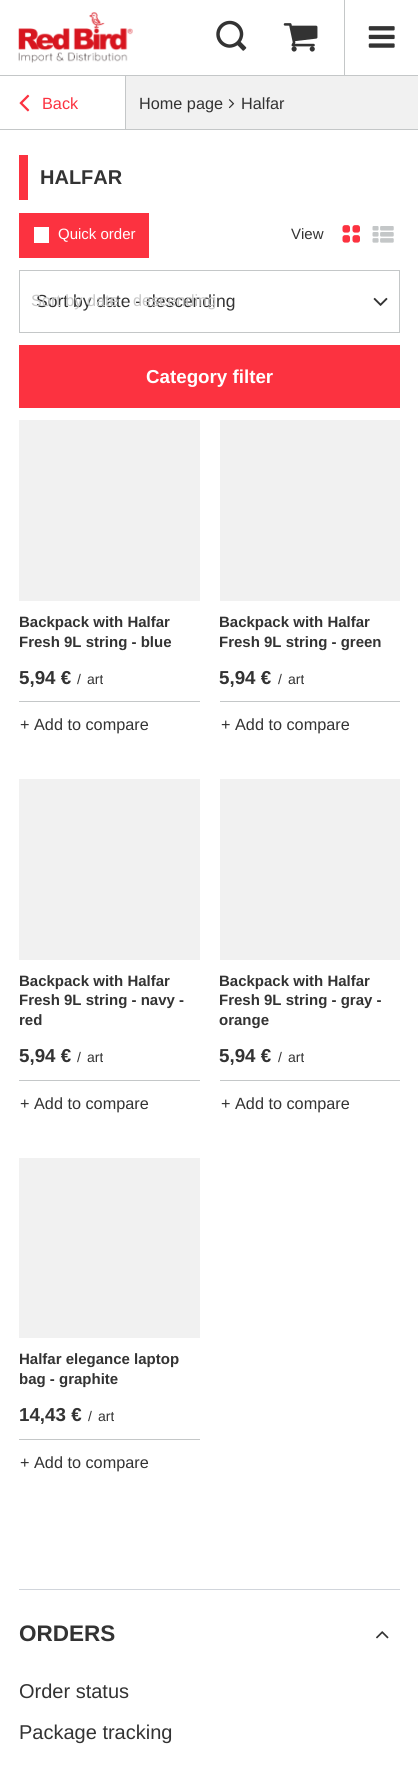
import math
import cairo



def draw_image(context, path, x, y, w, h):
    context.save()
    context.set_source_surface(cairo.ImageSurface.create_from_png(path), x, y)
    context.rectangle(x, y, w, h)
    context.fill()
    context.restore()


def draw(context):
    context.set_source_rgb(1, 1, 1)
    context.paint()
    context.set_source_rgb(196 / 255, 199 / 255, 200 / 255)
    context.rectangle(0, 75, 418, 1)
    context.fill()
    draw_image(context, "images/1.png", 18, 12, 115, 51)
    draw_image(context, "images/2.png", 216, 20, 31, 31)
    draw_image(context, "images/3.png", 283, 23, 35, 29)
    context.rectangle(344, 0, 1, 75)
    context.fill()
    draw_image(context, "images/4.png", 368, 26, 27, 22)
    draw_image(context, "images/5.png", 19, 94, 11, 18)
    context.set_source_rgb(241 / 255, 241 / 255, 241 / 255)
    context.rectangle(126, 76, 292, 53)
    context.fill()
    context.set_source_rgb(196 / 255, 199 / 255, 200 / 255)
    context.rectangle(125, 76, 1, 54)
    context.fill()
    draw_image(context, "images/6.png", 228, 99, 7, 10)
    context.rectangle(0, 129, 418, 1)
    context.fill()
    context.set_source_rgb(252 / 255, 50 / 255, 64 / 255)
    context.rectangle(19, 155, 9, 45)
    context.fill()
    context.rectangle(19, 213, 130, 45)
    context.fill()
    context.set_source_rgb(1, 1, 1)
    context.rectangle(34, 227, 15, 16)
    context.fill()
    draw_image(context, "images/7.png", 342, 225, 18, 18)
    draw_image(context, "images/8.png", 372, 226, 22, 17)
    context.rectangle(19.5, 270.5, 380, 62)
    context.set_source_rgb(196 / 255, 199 / 255, 200 / 255)
    context.set_line_width(1)
    context.stroke()
    draw_image(context, "images/9.png", 373, 297, 15, 9)
    context.set_source_rgb(252 / 255, 50 / 255, 64 / 255)
    context.rectangle(19, 345, 381, 63)
    context.fill()
    context.set_source_rgb(241 / 255, 241 / 255, 241 / 255)
    context.rectangle(19, 420, 181, 181)
    context.fill()
    context.set_source_rgb(196 / 255, 199 / 255, 200 / 255)
    context.rectangle(19, 701, 181, 1)
    context.fill()
    context.set_source_rgb(241 / 255, 241 / 255, 241 / 255)
    context.rectangle(220, 420, 180, 181)
    context.fill()
    context.set_source_rgb(196 / 255, 199 / 255, 200 / 255)
    context.rectangle(220, 701, 180, 1)
    context.fill()
    context.set_source_rgb(241 / 255, 241 / 255, 241 / 255)
    context.rectangle(19, 779, 181, 181)
    context.fill()
    context.set_source_rgb(196 / 255, 199 / 255, 200 / 255)
    context.rectangle(19, 1080, 181, 1)
    context.fill()
    context.set_source_rgb(241 / 255, 241 / 255, 241 / 255)
    context.rectangle(220, 779, 180, 181)
    context.fill()
    context.set_source_rgb(196 / 255, 199 / 255, 200 / 255)
    context.rectangle(220, 1080, 180, 1)
    context.fill()
    context.set_source_rgb(241 / 255, 241 / 255, 241 / 255)
    context.rectangle(19, 1158, 181, 180)
    context.fill()
    context.set_source_rgb(196 / 255, 199 / 255, 200 / 255)
    context.rectangle(19, 1439, 181, 1)
    context.fill()
    context.set_source_rgb(209 / 255, 213 / 255, 219 / 255)
    context.rectangle(19, 1589, 381, 1)
    context.fill()
    draw_image(context, "images/10.png", 376, 1631, 13, 8)
    context.select_font_face("Liberation Sans")
    context.set_font_size(16.25)
    context.set_source_rgb(252 / 255, 50 / 255, 64 / 255)
    context.move_to(42, 109)
    context.show_text("Back")
    context.set_source_rgb(51 / 255, 51 / 255, 51 / 255)
    context.move_to(139, 109)
    context.show_text("Home page")
    context.move_to(241, 109)
    context.show_text("Halfar")
    context.select_font_face("Liberation Sans", cairo.FontSlant.NORMAL, cairo.FontWeight.BOLD)
    context.set_font_size(20)
    context.move_to(40, 184)
    context.show_text("HALFAR")
    context.select_font_face("Liberation Sans")
    context.set_font_size(15)
    context.set_source_rgb(1, 1, 1)
    context.move_to(58, 239)
    context.show_text("Quick order")
    context.set_source_rgb(51 / 255, 51 / 255, 51 / 255)
    context.move_to(291, 239)
    context.show_text("View")
    context.set_font_size(17.5)
    context.move_to(36, 307)
    context.show_text("Sort by date - descending")
    context.set_font_size(16.25)
    context.set_source_rgb(200 / 255, 200 / 255, 200 / 255)
    context.move_to(31, 306)
    context.show_text("Sort by date - descending")
    context.select_font_face("Liberation Sans", cairo.FontSlant.NORMAL, cairo.FontWeight.BOLD)
    context.set_font_size(18.75)
    context.set_source_rgb(1, 1, 1)
    context.move_to(146, 383)
    context.show_text("Category filter")
    context.set_font_size(15)
    context.set_source_rgb(51 / 255, 51 / 255, 51 / 255)
    context.move_to(19, 627)
    context.show_text("Backpack with Halfar")
    context.move_to(19, 647)
    context.show_text("Fresh 9L string - blue")
    context.set_font_size(18.75)
    context.move_to(19, 684)
    context.show_text("5,94 €")
    context.select_font_face("Liberation Sans")
    context.set_font_size(14)
    context.move_to(77, 684)
    context.show_text("/")
    context.move_to(87, 684)
    context.show_text("art")
    context.set_font_size(16.25)
    context.move_to(20, 730)
    context.show_text("+ Add to compare")
    context.select_font_face("Liberation Sans", cairo.FontSlant.NORMAL, cairo.FontWeight.BOLD)
    context.set_font_size(15)
    context.move_to(219, 627)
    context.show_text("Backpack with Halfar")
    context.move_to(219, 647)
    context.show_text("Fresh 9L string - green")
    context.set_font_size(18.75)
    context.move_to(219, 684)
    context.show_text("5,94 €")
    context.select_font_face("Liberation Sans")
    context.set_font_size(14)
    context.move_to(278, 684)
    context.show_text("/")
    context.move_to(288, 684)
    context.show_text("art")
    context.set_font_size(16.25)
    context.move_to(221, 730)
    context.show_text("+ Add to compare")
    context.select_font_face("Liberation Sans", cairo.FontSlant.NORMAL, cairo.FontWeight.BOLD)
    context.set_font_size(15)
    context.move_to(19, 986)
    context.show_text("Backpack with Halfar")
    context.move_to(19, 1005)
    context.show_text("Fresh 9L string - navy -")
    context.move_to(19, 1025)
    context.show_text("red")
    context.set_font_size(18.75)
    context.move_to(19, 1062)
    context.show_text("5,94 €")
    context.select_font_face("Liberation Sans")
    context.set_font_size(14)
    context.move_to(77, 1062)
    context.show_text("/")
    context.move_to(87, 1062)
    context.show_text("art")
    context.set_font_size(16.25)
    context.move_to(20, 1109)
    context.show_text("+ Add to compare")
    context.select_font_face("Liberation Sans", cairo.FontSlant.NORMAL, cairo.FontWeight.BOLD)
    context.set_font_size(15)
    context.move_to(219, 986)
    context.show_text("Backpack with Halfar")
    context.move_to(219, 1005)
    context.show_text("Fresh 9L string - gray -")
    context.move_to(219, 1025)
    context.show_text("orange")
    context.set_font_size(18.75)
    context.move_to(219, 1062)
    context.show_text("5,94 €")
    context.select_font_face("Liberation Sans")
    context.set_font_size(14)
    context.move_to(278, 1062)
    context.show_text("/")
    context.move_to(288, 1062)
    context.show_text("art")
    context.set_font_size(16.25)
    context.move_to(221, 1109)
    context.show_text("+ Add to compare")
    context.select_font_face("Liberation Sans", cairo.FontSlant.NORMAL, cairo.FontWeight.BOLD)
    context.set_font_size(15)
    context.move_to(19, 1364)
    context.show_text("Halfar elegance laptop")
    context.move_to(19, 1384)
    context.show_text("bag - graphite")
    context.set_font_size(18.75)
    context.move_to(19, 1421)
    context.show_text("14,43 €")
    context.select_font_face("Liberation Sans")
    context.set_font_size(14)
    context.move_to(88, 1421)
    context.show_text("/")
    context.move_to(98, 1421)
    context.show_text("art")
    context.set_font_size(16.25)
    context.move_to(20, 1468)
    context.show_text("+ Add to compare")
    context.select_font_face("Liberation Sans", cairo.FontSlant.NORMAL, cairo.FontWeight.BOLD)
    context.set_font_size(22.5)
    context.move_to(19, 1641)
    context.show_text("ORDERS")
    context.select_font_face("Liberation Sans")
    context.set_font_size(20)
    context.move_to(19, 1698)
    context.show_text("Order status")
    context.move_to(19, 1739)
    context.show_text("Package tracking")


surface = cairo.ImageSurface(cairo.Format.RGB24, 418, 1765)
context = cairo.Context(surface)
options = cairo.FontOptions()
options.set_hint_metrics(cairo.HintMetrics.OFF)
options.set_hint_style(cairo.HintStyle.NONE)
context.set_font_options(options)
context.set_miter_limit(4)
draw(context)
surface.write_to_png("out.png")
